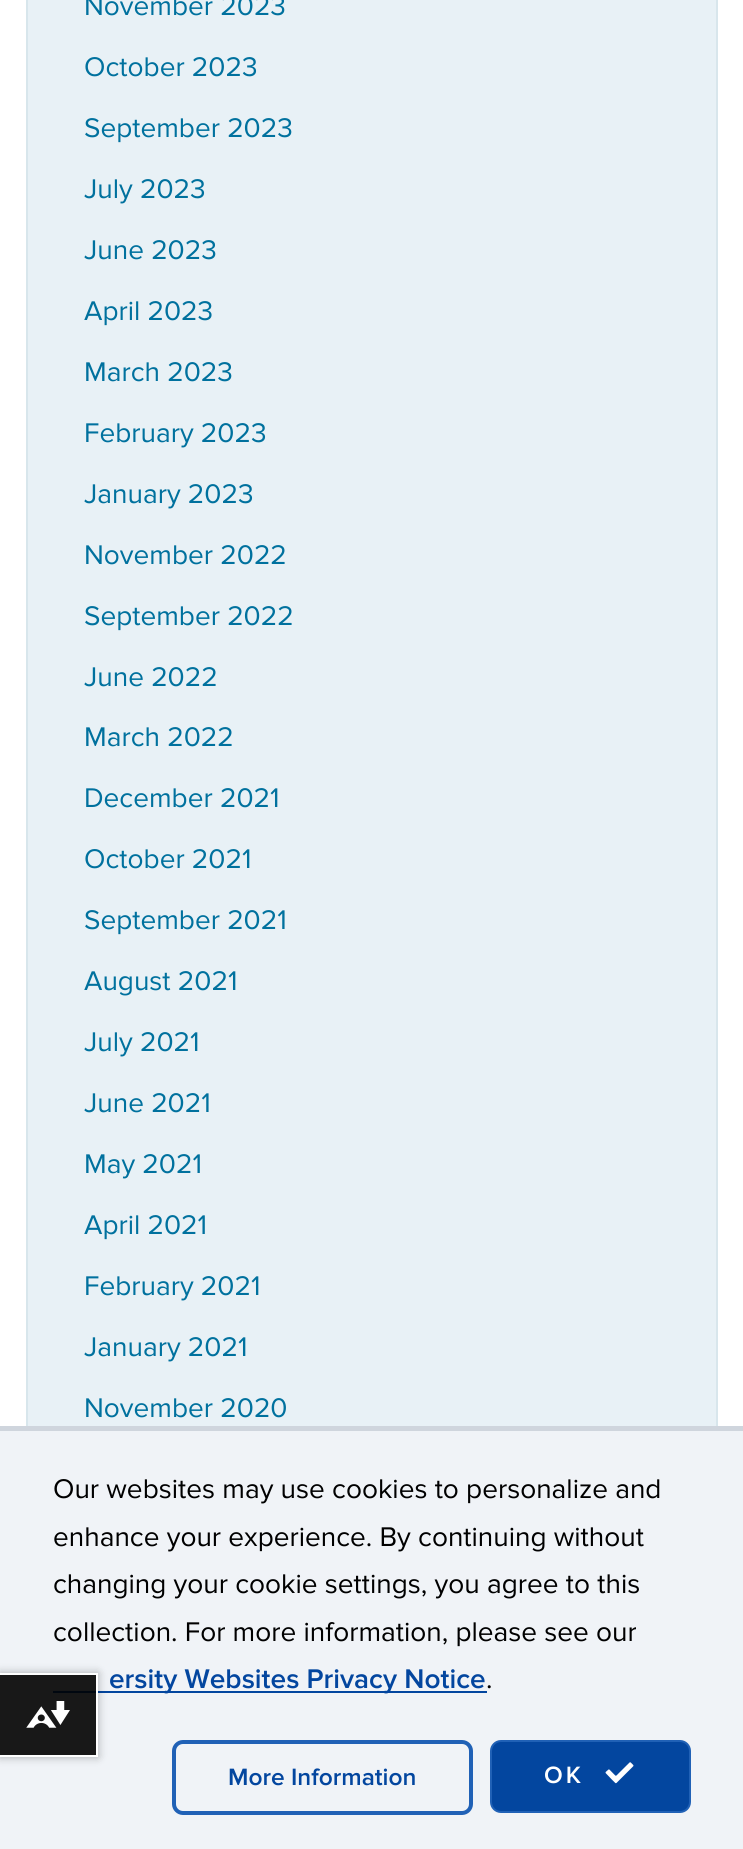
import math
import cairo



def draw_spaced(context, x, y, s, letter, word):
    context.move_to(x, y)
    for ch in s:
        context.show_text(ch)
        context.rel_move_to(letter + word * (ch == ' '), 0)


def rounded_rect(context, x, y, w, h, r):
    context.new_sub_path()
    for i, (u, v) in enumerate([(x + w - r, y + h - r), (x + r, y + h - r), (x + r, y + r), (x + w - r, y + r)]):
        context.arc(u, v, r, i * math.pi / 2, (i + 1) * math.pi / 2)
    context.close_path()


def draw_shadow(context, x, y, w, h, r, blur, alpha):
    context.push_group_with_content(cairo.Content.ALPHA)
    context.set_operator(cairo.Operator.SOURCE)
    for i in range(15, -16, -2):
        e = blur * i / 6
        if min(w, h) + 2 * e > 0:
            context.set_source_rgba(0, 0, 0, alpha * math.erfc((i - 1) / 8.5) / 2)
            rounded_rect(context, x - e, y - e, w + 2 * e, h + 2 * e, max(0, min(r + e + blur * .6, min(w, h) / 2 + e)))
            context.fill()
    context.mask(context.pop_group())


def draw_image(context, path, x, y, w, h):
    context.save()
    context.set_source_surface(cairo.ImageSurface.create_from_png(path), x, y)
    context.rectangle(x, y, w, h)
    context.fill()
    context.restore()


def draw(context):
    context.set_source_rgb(1, 1, 1)
    context.paint()
    context.set_source_rgb(232 / 255, 241 / 255, 246 / 255)
    context.rectangle(28, 0, 688, 1426)
    context.fill()
    context.rectangle(27, -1, 690, 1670)
    context.set_source_rgb(216 / 255, 230 / 255, 236 / 255)
    context.stroke()
    context.set_source_rgb(240 / 255, 243 / 255, 247 / 255)
    context.rectangle(0, 1431, 743, 418)
    context.fill()
    context.set_source_rgb(207 / 255, 213 / 255, 221 / 255)
    context.rectangle(0, 1426, 743, 5)
    context.fill()
    context.set_source_rgb(3 / 255, 70 / 255, 159 / 255)
    context.rectangle(53, 1691, 434, 2)
    context.fill()
    rounded_rect(context, 174, 1742, 297, 71, 9)
    context.set_source_rgb(32 / 255, 97 / 255, 182 / 255)
    context.set_line_width(4)
    context.stroke()
    context.set_source_rgb(3 / 255, 70 / 255, 159 / 255)
    rounded_rect(context, 491, 1741, 199, 71, 10)
    context.fill_preserve()
    context.set_source_rgb(32 / 255, 97 / 255, 182 / 255)
    context.set_line_width(2)
    context.stroke()
    draw_image(context, "images/1.png", 605, 1762, 29, 22)
    context.save()
    context.set_fill_rule(cairo.FillRule.EVEN_ODD)
    context.new_path()
    context.move_to(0, 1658)
    context.line_to(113, 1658)
    context.line_to(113, 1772)
    context.line_to(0, 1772)
    context.close_path()
    context.move_to(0, 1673)
    context.line_to(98, 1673)
    context.line_to(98, 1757)
    context.line_to(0, 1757)
    context.close_path()
    context.clip()
    context.set_source_rgb(0, 0, 0)
    draw_shadow(context, 0, 1673, 98, 84, 0, 4.5, 0.3)
    context.restore()
    context.set_source_rgba(0, 0, 0, 0.9)
    context.rectangle(0, 1675, 96, 80)
    context.fill()
    context.set_source_rgb(1, 1, 1)
    context.rectangle(0, 1673, 98, 2)
    context.fill()
    context.rectangle(96, 1673, 2, 84)
    context.fill()
    context.rectangle(0, 1755, 98, 2)
    context.fill()
    draw_image(context, "images/2.png", 26, 1701, 44, 27)
    context.select_font_face("Proxima Nova")
    context.set_font_size(28)
    context.set_source_rgb(0, 113 / 255, 158 / 255)
    context.move_to(84, 15)
    context.show_text("November 2023")
    context.move_to(84, 76)
    context.show_text("October 2023")
    context.move_to(84, 137)
    context.show_text("September 2023")
    context.move_to(84, 198)
    context.show_text("July 2023")
    context.move_to(84, 259)
    context.show_text("June 2023")
    context.move_to(84, 320)
    context.show_text("April 2023")
    context.move_to(84, 381)
    context.show_text("March 2023")
    context.move_to(84, 442)
    context.show_text("February 2023")
    context.move_to(84, 503)
    context.show_text("January 2023")
    context.move_to(84, 564)
    context.show_text("November 2022")
    context.move_to(84, 625)
    context.show_text("September 2022")
    context.move_to(84, 686)
    context.show_text("June 2022")
    context.move_to(84, 746)
    context.show_text("March 2022")
    context.move_to(84, 807)
    context.show_text("December 2021")
    context.move_to(84, 868)
    context.show_text("October 2021")
    context.move_to(84, 929)
    context.show_text("September 2021")
    context.move_to(84, 990)
    context.show_text("August 2021")
    context.move_to(84, 1051)
    context.show_text("July 2021")
    context.move_to(84, 1112)
    context.show_text("June 2021")
    context.move_to(84, 1173)
    context.show_text("May 2021")
    context.move_to(84, 1234)
    context.show_text("April 2021")
    context.move_to(84, 1295)
    context.show_text("February 2021")
    context.move_to(84, 1356)
    context.show_text("January 2021")
    context.move_to(84, 1417)
    context.show_text("November 2020")
    context.set_source_rgb(0, 0, 0)
    context.move_to(53, 1498)
    context.show_text("Our websites may use cookies to personalize and")
    context.move_to(53, 1546)
    context.show_text("enhance your experience. By continuing without")
    context.move_to(53, 1593)
    context.show_text("changing your cookie settings, you agree to this")
    context.move_to(53, 1641)
    context.show_text("collection. For more information, please see our")
    context.select_font_face("Proxima Nova SemiBold")
    context.set_source_rgb(3 / 255, 70 / 255, 159 / 255)
    context.move_to(109, 1688)
    context.show_text("ersity Websites Privacy Notice")
    context.select_font_face("Proxima Nova")
    context.set_source_rgb(0, 0, 0)
    context.move_to(486, 1688)
    context.show_text(".")
    context.select_font_face("Proxima Nova SemiBold")
    context.set_font_size(24.5)
    context.set_source_rgb(3 / 255, 70 / 255, 159 / 255)
    context.move_to(228, 1785)
    context.show_text("More Information")
    context.set_source_rgb(1, 1, 1)
    draw_spaced(context, 544, 1783, "OK", 3, 0)


surface = cairo.ImageSurface(cairo.Format.RGB24, 743, 1849)
context = cairo.Context(surface)
options = cairo.FontOptions()
options.set_hint_metrics(cairo.HintMetrics.OFF)
options.set_hint_style(cairo.HintStyle.NONE)
context.set_font_options(options)
context.set_miter_limit(4)
draw(context)
surface.write_to_png("out.png")
